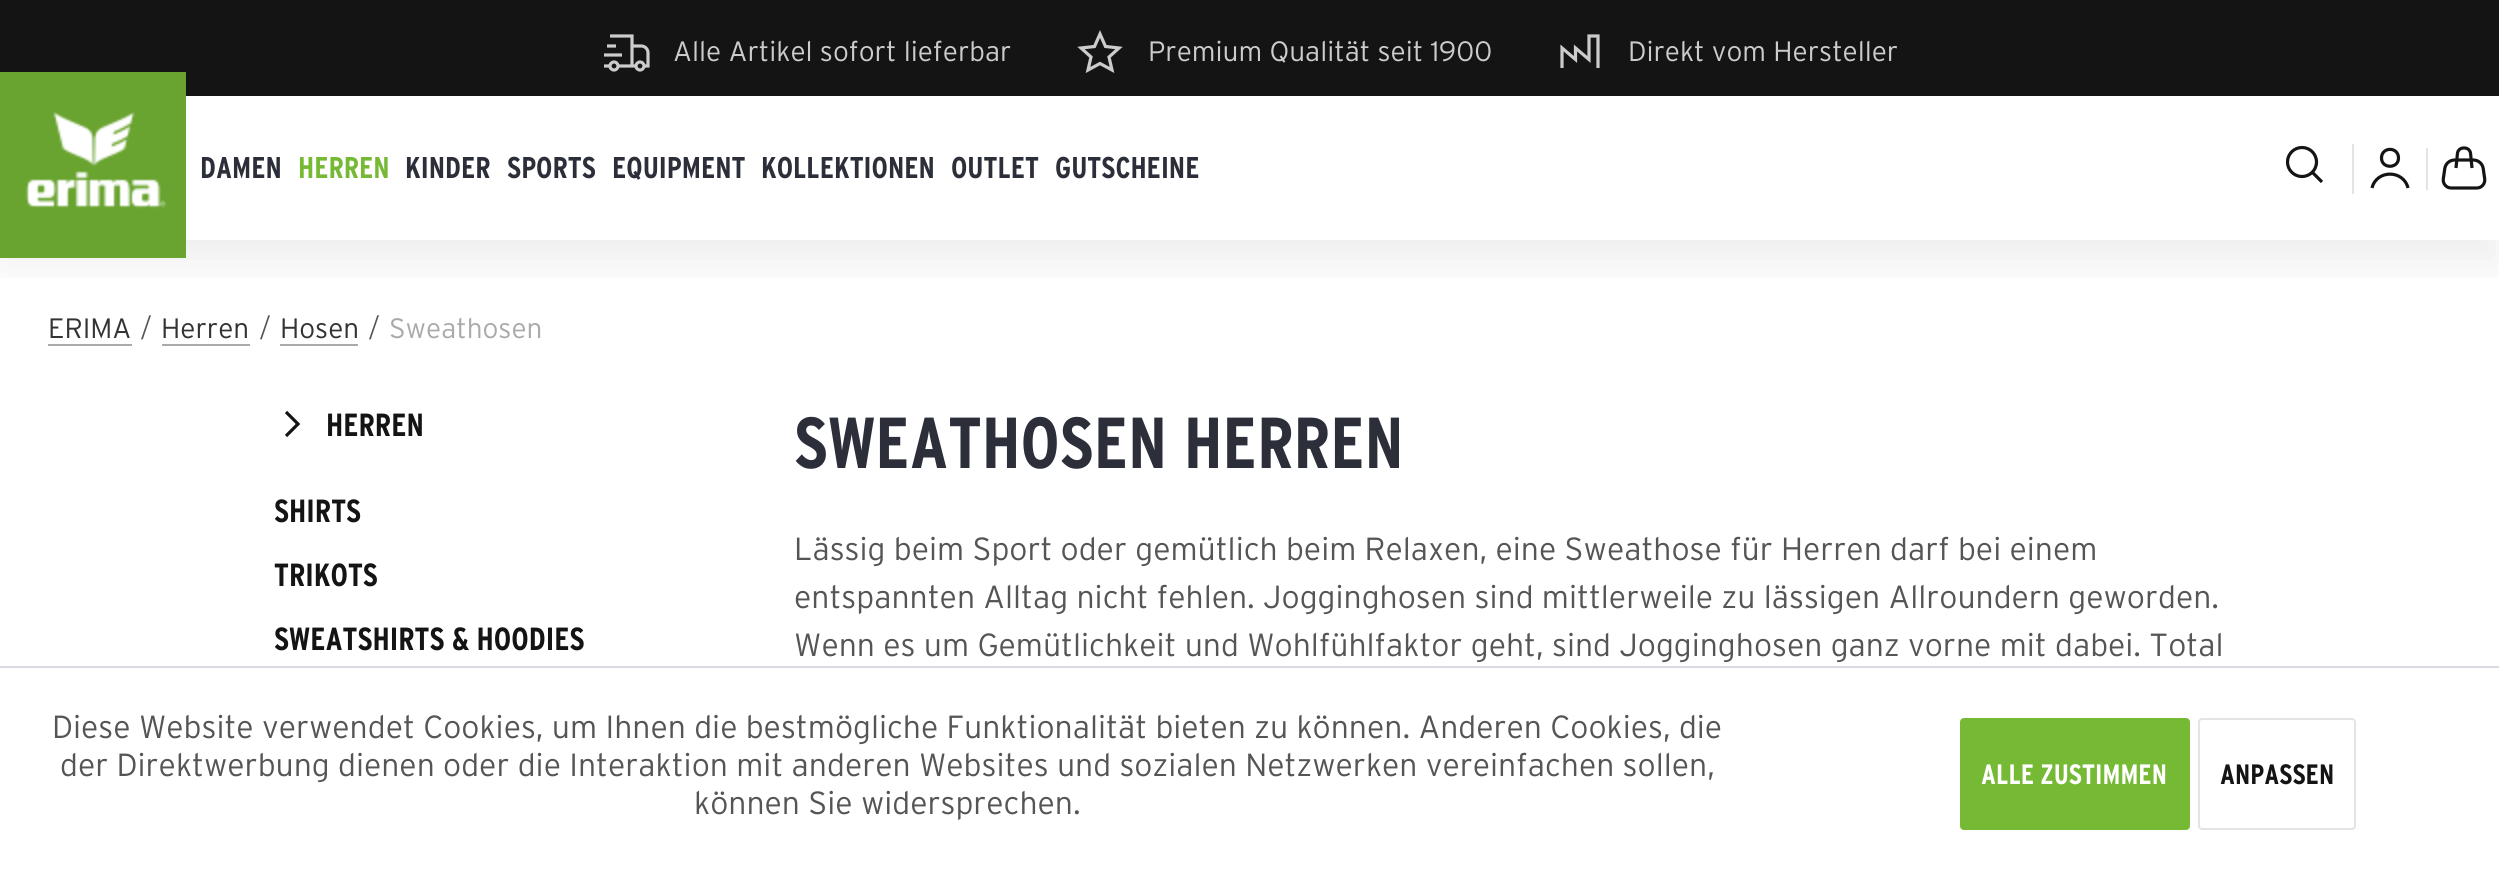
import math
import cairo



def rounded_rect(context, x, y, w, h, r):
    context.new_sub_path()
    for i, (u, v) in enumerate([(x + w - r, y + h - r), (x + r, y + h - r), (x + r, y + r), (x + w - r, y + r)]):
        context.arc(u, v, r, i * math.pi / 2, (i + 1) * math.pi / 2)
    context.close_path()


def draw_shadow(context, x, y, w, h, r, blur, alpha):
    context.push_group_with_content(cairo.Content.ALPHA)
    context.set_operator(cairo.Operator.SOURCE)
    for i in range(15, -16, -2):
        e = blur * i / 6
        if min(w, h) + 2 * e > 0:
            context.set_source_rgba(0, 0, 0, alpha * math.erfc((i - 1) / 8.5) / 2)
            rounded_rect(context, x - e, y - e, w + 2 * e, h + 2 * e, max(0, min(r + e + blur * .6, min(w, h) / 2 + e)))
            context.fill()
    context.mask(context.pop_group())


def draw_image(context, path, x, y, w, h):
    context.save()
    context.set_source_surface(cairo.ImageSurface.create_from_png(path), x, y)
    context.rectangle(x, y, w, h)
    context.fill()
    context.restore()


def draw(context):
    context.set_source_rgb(1, 1, 1)
    context.paint()
    context.save()
    context.rectangle(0, 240, 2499, 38)
    context.clip()
    context.set_source_rgb(0, 0, 0)
    draw_shadow(context, 0, 24, 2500, 240, 0, 24, 0.07)
    context.restore()
    context.set_source_rgb(20 / 255, 20 / 255, 20 / 255)
    context.rectangle(0, 0, 2499, 96)
    context.fill()
    draw_image(context, "images/1.png", 604, 34, 46, 38)
    context.new_path()
    context.move_to(1100, 34)
    context.line_to(1105.5, 46.5)
    context.line_to(1119, 48)
    context.line_to(1109, 57)
    context.line_to(1112, 70)
    context.line_to(1100, 63.5)
    context.line_to(1088, 70)
    context.line_to(1091, 57)
    context.line_to(1081, 48)
    context.line_to(1094.5, 46.5)
    context.close_path()
    context.set_source_rgb(204 / 255, 204 / 255, 204 / 255)
    context.set_line_width(3.2)
    context.stroke()
    context.new_path()
    context.move_to(1598, 68)
    context.line_to(1598, 36)
    context.line_to(1589, 36)
    context.line_to(1589, 59.5)
    context.line_to(1575.5, 48)
    context.line_to(1575.5, 59.5)
    context.line_to(1562, 48)
    context.line_to(1562, 68)
    context.stroke()
    draw_image(context, "images/2.png", 0, 72, 186, 186)
    context.set_source_rgb(228 / 255, 228 / 255, 228 / 255)
    context.rectangle(2352, 144, 2, 50)
    context.fill()
    context.arc(2302, 162, 14.5, 0, 2 * math.pi)
    context.set_source_rgb(20 / 255, 20 / 255, 20 / 255)
    context.stroke()
    context.new_path()
    context.move_to(2312, 172)
    context.line_to(2322, 182)
    context.stroke()
    context.set_source_rgb(228 / 255, 228 / 255, 228 / 255)
    context.rectangle(2426, 148, 2, 42)
    context.fill()
    context.new_path()
    context.move_to(2372, 188)
    context.curve_to(2376.5, 169.5, 2403.5, 169.5, 2408, 188)
    context.move_to(2398.5, 158)
    context.curve_to(2398.5, 169, 2381.5, 169, 2381.5, 158)
    context.curve_to(2381.5, 146.5, 2398.5, 146.5, 2398.5, 158)
    context.close_path()
    context.set_source_rgb(20 / 255, 20 / 255, 20 / 255)
    context.stroke()
    draw_image(context, "images/3.png", 2441, 146, 46, 44)
    context.set_source_rgb(170 / 255, 170 / 255, 170 / 255)
    context.rectangle(48, 344, 84, 2)
    context.fill()
    context.rectangle(162, 344, 88, 2)
    context.fill()
    context.rectangle(280, 344, 78, 2)
    context.fill()
    context.new_path()
    context.move_to(286, 436)
    context.line_to(298, 424)
    context.line_to(286, 412)
    context.set_source_rgb(20 / 255, 20 / 255, 20 / 255)
    context.stroke()
    context.set_source_rgb(218 / 255, 218 / 255, 229 / 255)
    context.rectangle(0, 666, 2499, 2)
    context.fill()
    context.set_source_rgb(118 / 255, 185 / 255, 53 / 255)
    rounded_rect(context, 1961, 719, 228, 110, 3)
    context.fill_preserve()
    context.set_line_width(2)
    context.stroke()
    rounded_rect(context, 2199, 719, 156, 110, 3)
    context.set_source_rgb(228 / 255, 228 / 255, 228 / 255)
    context.stroke()
    context.select_font_face("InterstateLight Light")
    context.set_font_size(28)
    context.set_source_rgb(204 / 255, 204 / 255, 204 / 255)
    context.move_to(673, 61)
    context.show_text("Alle Artikel sofort lieferbar")
    context.move_to(1148, 61)
    context.show_text("Premium Qualität seit 1900")
    context.move_to(1628, 61)
    context.show_text("Direkt vom Hersteller")
    context.select_font_face("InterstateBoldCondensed", cairo.FontSlant.NORMAL, cairo.FontWeight.BOLD)
    context.set_font_size(30)
    context.set_source_rgb(44 / 255, 47 / 255, 58 / 255)
    context.move_to(200, 178)
    context.show_text("DAMEN")
    context.set_source_rgb(118 / 255, 185 / 255, 53 / 255)
    context.move_to(298, 178)
    context.show_text("HERREN")
    context.set_source_rgb(44 / 255, 47 / 255, 58 / 255)
    context.move_to(405, 178)
    context.show_text("KINDER")
    context.move_to(507, 178)
    context.show_text("SPORTS")
    context.move_to(612, 178)
    context.show_text("EQUIPMENT")
    context.move_to(761, 178)
    context.show_text("KOLLEKTIONEN")
    context.move_to(951, 178)
    context.show_text("OUTLET")
    context.move_to(1055, 178)
    context.show_text("GUTSCHEINE")
    context.select_font_face("InterstateLight Light")
    context.set_font_size(28)
    context.set_source_rgb(51 / 255, 51 / 255, 51 / 255)
    context.move_to(48, 338)
    context.show_text("ERIMA")
    context.select_font_face("Liberation Serif")
    context.set_font_size(36)
    context.set_source_rgb(85 / 255, 85 / 255, 85 / 255)
    context.move_to(141, 339)
    context.show_text("/")
    context.select_font_face("InterstateLight Light")
    context.set_font_size(28)
    context.set_source_rgb(51 / 255, 51 / 255, 51 / 255)
    context.move_to(161, 338)
    context.show_text("Herren")
    context.select_font_face("Liberation Serif")
    context.set_font_size(36)
    context.set_source_rgb(85 / 255, 85 / 255, 85 / 255)
    context.move_to(260, 339)
    context.show_text("/")
    context.select_font_face("InterstateLight Light")
    context.set_font_size(28)
    context.set_source_rgb(51 / 255, 51 / 255, 51 / 255)
    context.move_to(280, 338)
    context.show_text("Hosen")
    context.select_font_face("Liberation Serif")
    context.set_font_size(36)
    context.set_source_rgb(85 / 255, 85 / 255, 85 / 255)
    context.move_to(369, 339)
    context.show_text("/")
    context.select_font_face("InterstateLight Light")
    context.set_font_size(28)
    context.set_source_rgb(170 / 255, 170 / 255, 170 / 255)
    context.move_to(389, 338)
    context.show_text("Sweathosen")
    context.select_font_face("InterstateBoldCondensed", cairo.FontSlant.NORMAL, cairo.FontWeight.BOLD)
    context.set_font_size(32)
    context.set_source_rgb(20 / 255, 20 / 255, 20 / 255)
    context.move_to(326, 436)
    context.show_text("HERREN")
    context.move_to(274, 522)
    context.show_text("SHIRTS")
    context.move_to(274, 586)
    context.show_text("TRIKOTS")
    context.move_to(274, 650)
    context.show_text("SWEATSHIRTS & HOODIES")
    context.set_font_size(72)
    context.set_source_rgb(44 / 255, 47 / 255, 58 / 255)
    context.move_to(794, 468)
    context.show_text("SWEATHOSEN HERREN")
    context.select_font_face("InterstateLight Light")
    context.set_font_size(32)
    context.set_source_rgb(85 / 255, 85 / 255, 85 / 255)
    context.move_to(794, 560)
    context.show_text("Lässig beim Sport oder gemütlich beim Relaxen, eine Sweathose für Herren darf bei einem")
    context.move_to(794, 608)
    context.show_text("entspannten Alltag nicht fehlen. Jogginghosen sind mittlerweile zu lässigen Allroundern geworden.")
    context.move_to(794, 656)
    context.show_text("Wenn es um Gemütlichkeit und Wohlfühlfaktor geht, sind Jogginghosen ganz vorne mit dabei. Total")
    context.move_to(52, 738)
    context.show_text("Diese Website verwendet Cookies, um Ihnen die bestmögliche Funktionalität bieten zu können. Anderen Cookies, die")
    context.move_to(60, 776)
    context.show_text("der Direktwerbung dienen oder die Interaktion mit anderen Websites und sozialen Netzwerken vereinfachen sollen,")
    context.move_to(694, 814)
    context.show_text("können Sie widersprechen.")
    context.select_font_face("InterstateBoldCondensed", cairo.FontSlant.NORMAL, cairo.FontWeight.BOLD)
    context.set_font_size(28)
    context.set_source_rgb(1, 1, 1)
    context.move_to(1981, 784)
    context.show_text("ALLE ZUSTIMMEN")
    context.set_source_rgb(20 / 255, 20 / 255, 20 / 255)
    context.move_to(2220, 784)
    context.show_text("ANPASSEN")


surface = cairo.ImageSurface(cairo.Format.RGB24, 2499, 869)
context = cairo.Context(surface)
options = cairo.FontOptions()
options.set_hint_metrics(cairo.HintMetrics.OFF)
options.set_hint_style(cairo.HintStyle.NONE)
context.set_font_options(options)
context.set_miter_limit(4)
draw(context)
surface.write_to_png("out.png")
